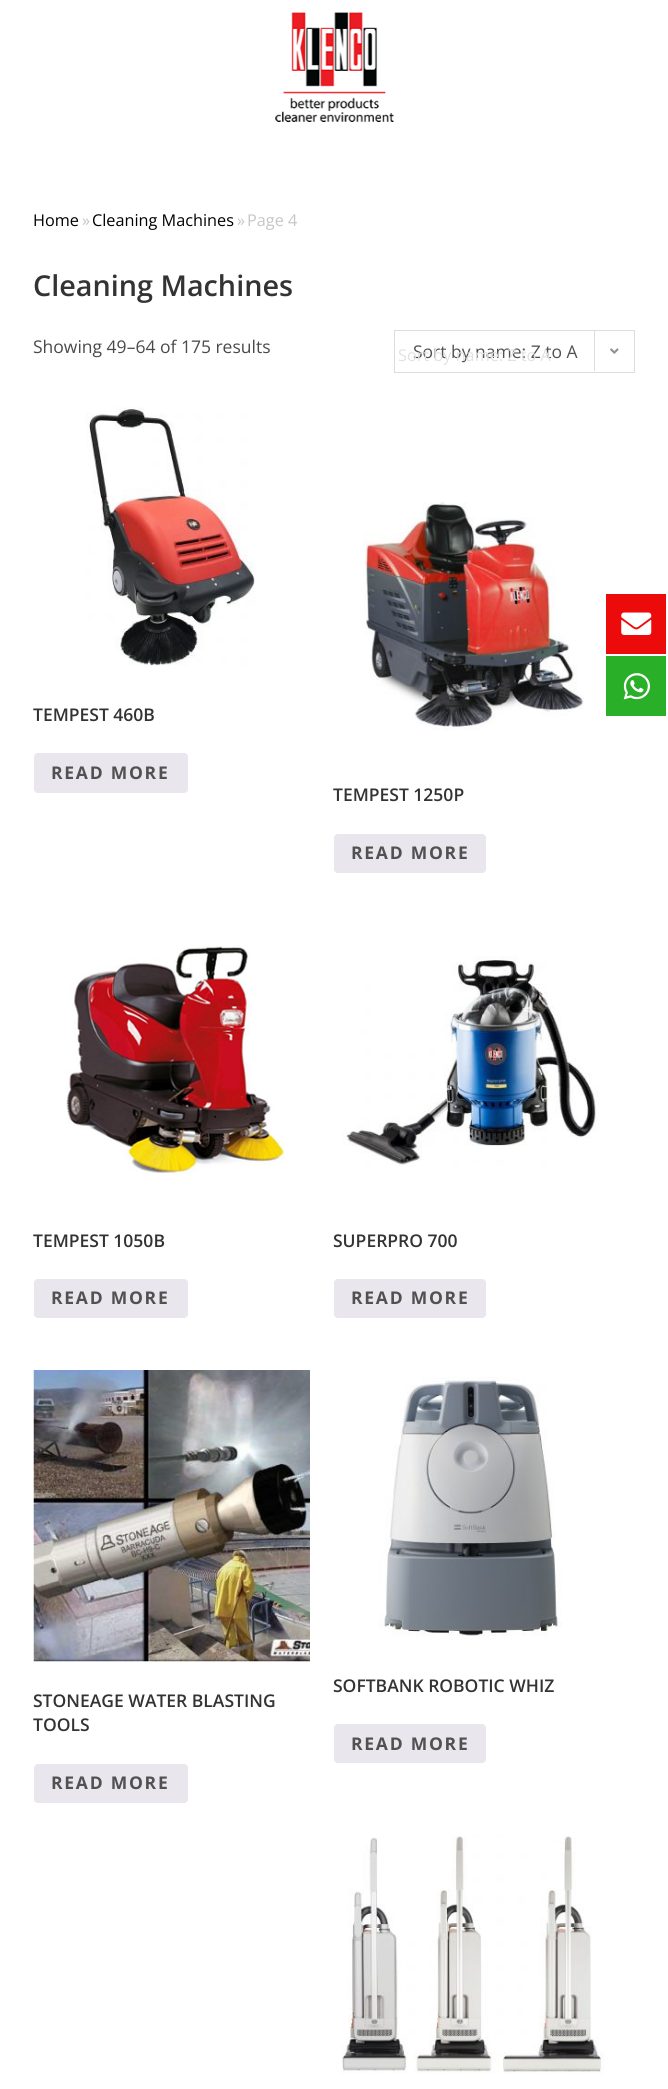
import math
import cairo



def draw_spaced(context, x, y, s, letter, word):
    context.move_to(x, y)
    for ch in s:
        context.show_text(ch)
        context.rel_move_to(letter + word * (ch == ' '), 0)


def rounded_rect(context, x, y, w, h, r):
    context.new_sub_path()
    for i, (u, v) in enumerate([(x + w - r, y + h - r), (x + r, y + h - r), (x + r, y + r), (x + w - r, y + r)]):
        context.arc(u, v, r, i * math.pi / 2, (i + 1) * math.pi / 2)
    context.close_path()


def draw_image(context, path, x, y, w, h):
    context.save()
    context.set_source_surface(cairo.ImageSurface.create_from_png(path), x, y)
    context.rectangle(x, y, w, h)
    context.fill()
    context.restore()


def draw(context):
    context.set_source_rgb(1, 1, 1)
    context.paint()
    draw_image(context, "images/1.png", 275, 12, 119, 110)
    context.rectangle(394.5, 330.5, 240, 42)
    context.set_source_rgb(221 / 255, 221 / 255, 221 / 255)
    context.set_line_width(1)
    context.stroke()
    context.rectangle(594, 331, 1, 40)
    context.fill()
    draw_image(context, "images/2.png", 610, 348, 9, 6)
    draw_image(context, "images/3.png", 86, 406, 169, 260)
    context.set_source_rgb(233 / 255, 230 / 255, 237 / 255)
    rounded_rect(context, 34, 753, 154, 40, 4)
    context.fill()
    draw_image(context, "images/4.png", 363, 502, 221, 229)
    rounded_rect(context, 334, 834, 152, 39, 4)
    context.fill()
    draw_image(context, "images/5.png", 66, 945, 219, 230)
    rounded_rect(context, 34, 1279, 154, 39, 4)
    context.fill()
    draw_image(context, "images/6.png", 342, 956, 257, 210)
    rounded_rect(context, 334, 1279, 152, 39, 4)
    context.fill()
    draw_image(context, "images/7.png", 33, 1370, 277, 292)
    rounded_rect(context, 34, 1764, 154, 39, 4)
    context.fill()
    draw_image(context, "images/8.png", 378, 1377, 184, 259)
    rounded_rect(context, 334, 1724, 152, 39, 4)
    context.fill()
    draw_image(context, "images/9.png", 341, 1835, 264, 239)
    context.set_source_rgb(236 / 255, 10 / 255, 11 / 255)
    context.rectangle(606, 594, 60, 60)
    context.fill()
    draw_image(context, "images/10.png", 621, 612, 31, 23)
    context.set_source_rgb(42 / 255, 175 / 255, 40 / 255)
    context.rectangle(606, 656, 60, 60)
    context.fill()
    draw_image(context, "images/11.png", 623, 673, 27, 27)
    context.select_font_face("Open Sans")
    context.set_font_size(16.25)
    context.set_source_rgb(0, 0, 0)
    context.move_to(33, 226)
    context.show_text("Home")
    context.set_source_rgb(198 / 255, 198 / 255, 198 / 255)
    context.move_to(82, 226)
    context.show_text("»")
    context.set_source_rgb(0, 0, 0)
    context.move_to(92, 226)
    context.show_text("Cleaning Machines")
    context.set_source_rgb(198 / 255, 198 / 255, 198 / 255)
    context.move_to(237, 226)
    context.show_text("»")
    context.move_to(247, 226)
    context.show_text("Page 4")
    context.select_font_face("Open Sans SemiBold")
    context.set_font_size(28.75)
    context.set_source_rgb(51 / 255, 51 / 255, 51 / 255)
    context.move_to(33, 296)
    context.show_text("Cleaning Machines")
    context.select_font_face("Open Sans")
    context.set_font_size(17.5)
    context.set_source_rgb(74 / 255, 74 / 255, 74 / 255)
    context.move_to(33, 353)
    context.show_text("Showing 49–64 of 175 results")
    context.set_source_rgb(81 / 255, 81 / 255, 81 / 255)
    context.move_to(413, 358)
    context.show_text("Sort by name: Z to A")
    context.set_font_size(16.25)
    context.set_source_rgb(226 / 255, 226 / 255, 226 / 255)
    context.move_to(398, 361)
    context.show_text("Sort by name: Z to A")
    context.select_font_face("Open Sans SemiBold")
    context.set_font_size(17.5)
    context.set_source_rgb(51 / 255, 51 / 255, 51 / 255)
    context.move_to(33, 721)
    context.show_text("TEMPEST 460B")
    context.select_font_face("Open Sans", cairo.FontSlant.NORMAL, cairo.FontWeight.BOLD)
    context.set_source_rgb(81 / 255, 81 / 255, 81 / 255)
    draw_spaced(context, 51, 779, "READ MORE", 1.75, 0)
    context.select_font_face("Open Sans SemiBold")
    context.set_source_rgb(51 / 255, 51 / 255, 51 / 255)
    context.move_to(333, 801)
    context.show_text("TEMPEST 1250P")
    context.select_font_face("Open Sans", cairo.FontSlant.NORMAL, cairo.FontWeight.BOLD)
    context.set_source_rgb(81 / 255, 81 / 255, 81 / 255)
    draw_spaced(context, 351, 859, "READ MORE", 1.75, 0)
    context.select_font_face("Open Sans SemiBold")
    context.set_source_rgb(51 / 255, 51 / 255, 51 / 255)
    context.move_to(33, 1247)
    context.show_text("TEMPEST 1050B")
    context.select_font_face("Open Sans", cairo.FontSlant.NORMAL, cairo.FontWeight.BOLD)
    context.set_source_rgb(81 / 255, 81 / 255, 81 / 255)
    draw_spaced(context, 51, 1304, "READ MORE", 1.75, 0)
    context.select_font_face("Open Sans SemiBold")
    context.set_source_rgb(51 / 255, 51 / 255, 51 / 255)
    context.move_to(333, 1247)
    context.show_text("SUPERPRO 700")
    context.select_font_face("Open Sans", cairo.FontSlant.NORMAL, cairo.FontWeight.BOLD)
    context.set_source_rgb(81 / 255, 81 / 255, 81 / 255)
    draw_spaced(context, 351, 1304, "READ MORE", 1.75, 0)
    context.select_font_face("Open Sans SemiBold")
    context.set_source_rgb(51 / 255, 51 / 255, 51 / 255)
    context.move_to(33, 1707)
    context.show_text("STONEAGE WATER BLASTING")
    context.move_to(33, 1731)
    context.show_text("TOOLS")
    context.select_font_face("Open Sans", cairo.FontSlant.NORMAL, cairo.FontWeight.BOLD)
    context.set_source_rgb(81 / 255, 81 / 255, 81 / 255)
    draw_spaced(context, 51, 1789, "READ MORE", 1.75, 0)
    context.select_font_face("Open Sans SemiBold")
    context.set_source_rgb(51 / 255, 51 / 255, 51 / 255)
    context.move_to(333, 1692)
    context.show_text("SOFTBANK ROBOTIC WHIZ")
    context.select_font_face("Open Sans", cairo.FontSlant.NORMAL, cairo.FontWeight.BOLD)
    context.set_source_rgb(81 / 255, 81 / 255, 81 / 255)
    draw_spaced(context, 351, 1750, "READ MORE", 1.75, 0)


surface = cairo.ImageSurface(cairo.Format.RGB24, 668, 2089)
context = cairo.Context(surface)
options = cairo.FontOptions()
options.set_hint_metrics(cairo.HintMetrics.OFF)
options.set_hint_style(cairo.HintStyle.NONE)
context.set_font_options(options)
context.set_miter_limit(4)
draw(context)
surface.write_to_png("out.png")
